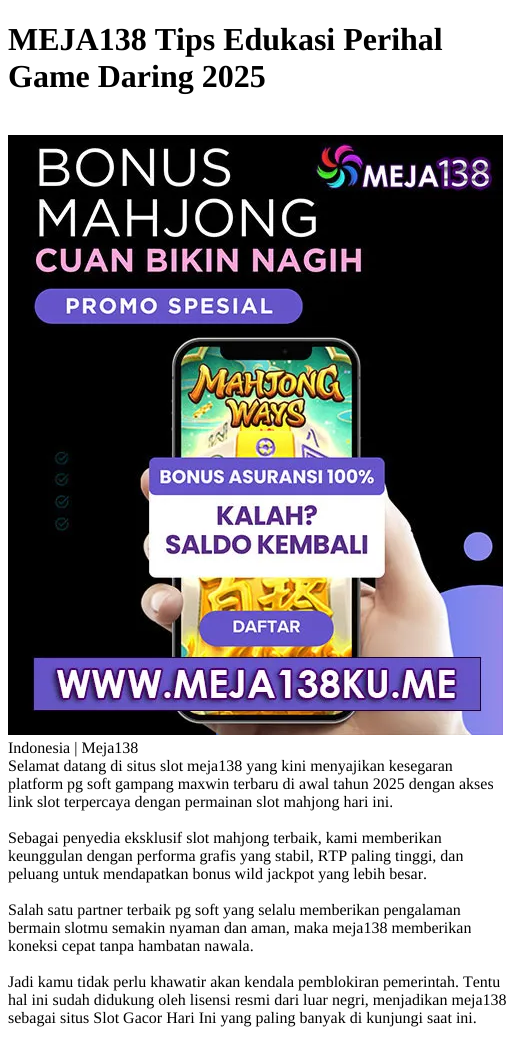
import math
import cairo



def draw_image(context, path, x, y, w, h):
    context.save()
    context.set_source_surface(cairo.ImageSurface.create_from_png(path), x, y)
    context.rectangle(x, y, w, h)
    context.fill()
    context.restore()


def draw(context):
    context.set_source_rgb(1, 1, 1)
    context.paint()
    draw_image(context, "images/1.png", 8, 135, 495, 600)
    context.select_font_face("Liberation Serif", cairo.FontSlant.NORMAL, cairo.FontWeight.BOLD)
    context.set_font_size(32)
    context.set_source_rgb(0, 0, 0)
    context.move_to(8, 50)
    context.show_text("MEJA138 Tips Edukasi Perihal")
    context.move_to(8, 87)
    context.show_text("Game Daring 2025")
    context.select_font_face("Liberation Serif")
    context.set_font_size(16)
    context.move_to(8, 753)
    context.show_text("Indonesia | Meja138")
    context.move_to(8, 771)
    context.show_text("Selamat datang di situs slot meja138 yang kini menyajikan kesegaran")
    context.move_to(8, 789)
    context.show_text("platform pg soft gampang maxwin terbaru di awal tahun 2025 dengan akses")
    context.move_to(8, 807)
    context.show_text("link slot terpercaya dengan permainan slot mahjong hari ini.")
    context.move_to(8, 843)
    context.show_text("Sebagai penyedia eksklusif slot mahjong terbaik, kami memberikan")
    context.move_to(8, 861)
    context.show_text("keunggulan dengan performa grafis yang stabil, RTP paling tinggi, dan")
    context.move_to(8, 879)
    context.show_text("peluang untuk mendapatkan bonus wild jackpot yang lebih besar.")
    context.move_to(8, 915)
    context.show_text("Salah satu partner terbaik pg soft yang selalu memberikan pengalaman")
    context.move_to(8, 933)
    context.show_text("bermain slotmu semakin nyaman dan aman, maka meja138 memberikan")
    context.move_to(8, 951)
    context.show_text("koneksi cepat tanpa hambatan nawala.")
    context.move_to(8, 987)
    context.show_text("Jadi kamu tidak perlu khawatir akan kendala pemblokiran pemerintah. Tentu")
    context.move_to(8, 1005)
    context.show_text("hal ini sudah didukung oleh lisensi resmi dari luar negri, menjadikan meja138")
    context.move_to(8, 1023)
    context.show_text("sebagai situs Slot Gacor Hari Ini yang paling banyak di kunjungi saat ini.")


surface = cairo.ImageSurface(cairo.Format.RGB24, 518, 1046)
context = cairo.Context(surface)
options = cairo.FontOptions()
options.set_hint_metrics(cairo.HintMetrics.OFF)
options.set_hint_style(cairo.HintStyle.NONE)
context.set_font_options(options)
context.set_miter_limit(4)
draw(context)
surface.write_to_png("out.png")
